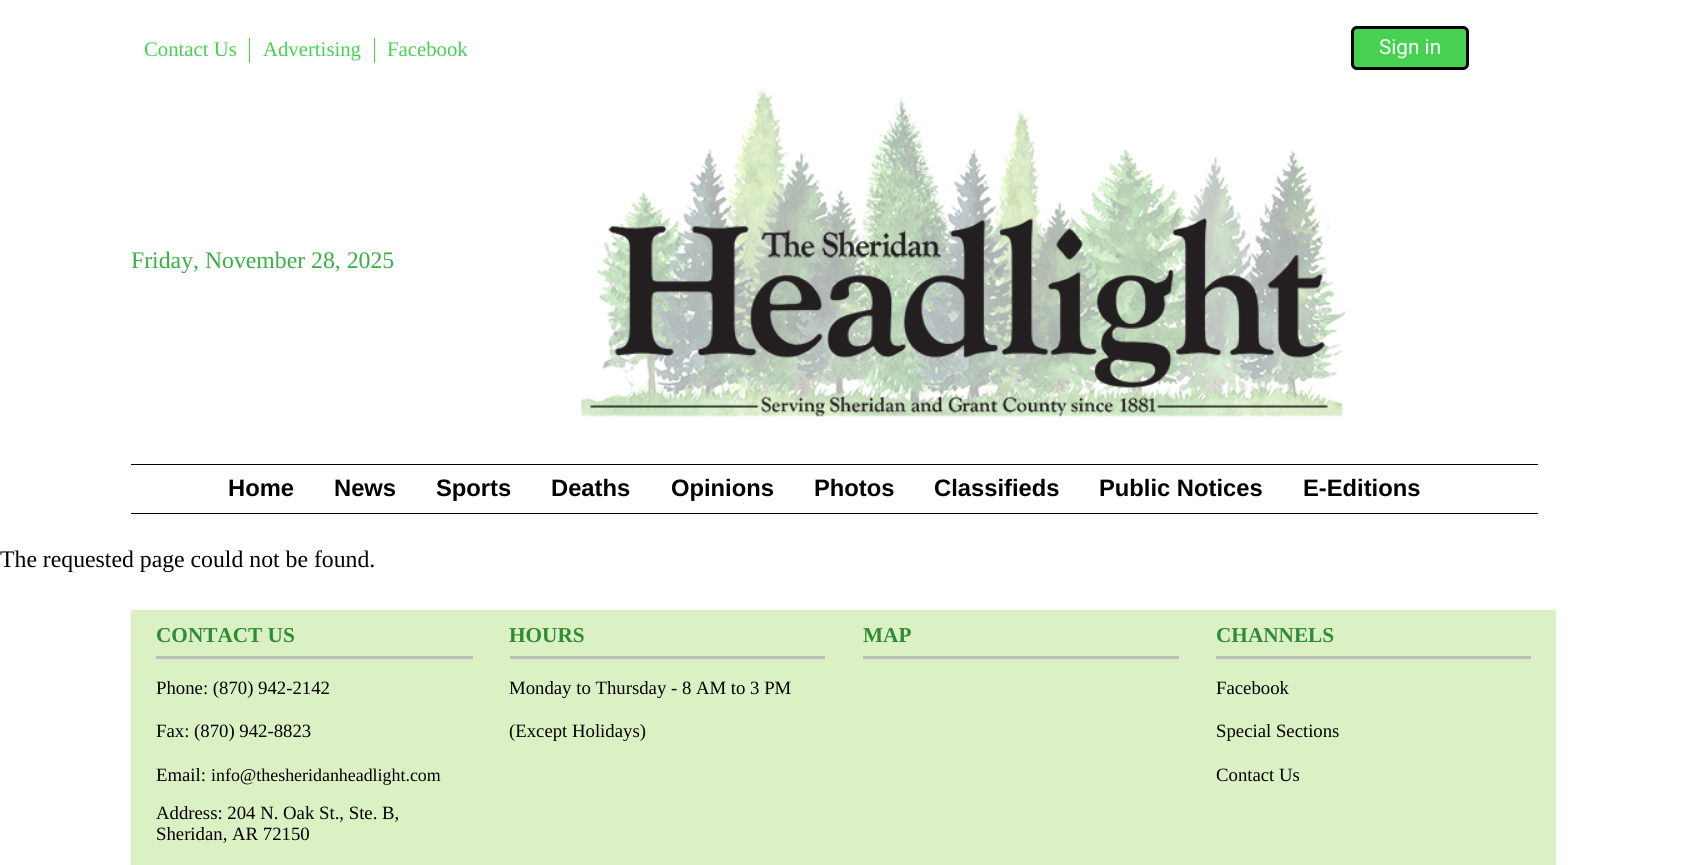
import math
import cairo



def rounded_rect(context, x, y, w, h, r):
    context.new_sub_path()
    for i, (u, v) in enumerate([(x + w - r, y + h - r), (x + r, y + h - r), (x + r, y + r), (x + w - r, y + r)]):
        context.arc(u, v, r, i * math.pi / 2, (i + 1) * math.pi / 2)
    context.close_path()


def draw_image(context, path, x, y, w, h):
    context.save()
    context.set_source_surface(cairo.ImageSurface.create_from_png(path), x, y)
    context.rectangle(x, y, w, h)
    context.fill()
    context.restore()


def draw(context):
    context.set_source_rgb(1, 1, 1)
    context.paint()
    context.set_source_rgb(70 / 255, 210 / 255, 80 / 255)
    context.rectangle(249, 38, 1, 25)
    context.fill()
    context.rectangle(374, 38, 1, 25)
    context.fill()
    rounded_rect(context, 1352.5, 27.5, 115, 41, 4.5)
    context.fill_preserve()
    context.set_source_rgb(0, 0, 0)
    context.set_line_width(3)
    context.stroke()
    context.rectangle(131, 464, 1407, 1)
    context.fill()
    draw_image(context, "images/1.png", 581, 89, 766, 328)
    context.rectangle(131, 513, 1407, 1)
    context.fill()
    context.set_source_rgb(219 / 255, 240 / 255, 195 / 255)
    context.rectangle(131, 610, 1425, 255)
    context.fill()
    context.set_source_rgb(190 / 255, 190 / 255, 190 / 255)
    context.rectangle(156, 656, 317, 3)
    context.fill()
    context.rectangle(510, 656, 315, 3)
    context.fill()
    context.rectangle(863, 656, 316, 3)
    context.fill()
    context.rectangle(1216, 656, 315, 3)
    context.fill()
    context.select_font_face("Liberation Serif")
    context.set_font_size(20.75)
    context.set_source_rgb(70 / 255, 210 / 255, 80 / 255)
    context.move_to(144, 56)
    context.show_text("Contact Us")
    context.move_to(263, 56)
    context.show_text("Advertising")
    context.move_to(387, 56)
    context.show_text("Facebook")
    context.select_font_face("Roboto")
    context.set_source_rgb(1, 1, 1)
    context.move_to(1379, 54)
    context.show_text("Sign in")
    context.select_font_face("Liberation Serif")
    context.set_font_size(23.75)
    context.set_source_rgb(58 / 255, 175 / 255, 67 / 255)
    context.move_to(131, 268)
    context.show_text("Friday, November 28, 2025")
    context.select_font_face("Liberation Sans", cairo.FontSlant.NORMAL, cairo.FontWeight.BOLD)
    context.set_source_rgb(0, 0, 0)
    context.move_to(228, 496)
    context.show_text("Home")
    context.move_to(334, 496)
    context.show_text("News")
    context.move_to(436, 496)
    context.show_text("Sports")
    context.move_to(551, 496)
    context.show_text("Deaths")
    context.move_to(671, 496)
    context.show_text("Opinions")
    context.move_to(814, 496)
    context.show_text("Photos")
    context.move_to(934, 496)
    context.show_text("Classifieds")
    context.move_to(1099, 496)
    context.show_text("Public Notices")
    context.move_to(1303, 496)
    context.show_text("E-Editions")
    context.select_font_face("Liberation Serif")
    context.move_to(0, 567)
    context.show_text("The requested page could not be found.")
    context.select_font_face("Liberation Serif", cairo.FontSlant.NORMAL, cairo.FontWeight.BOLD)
    context.set_font_size(21.25)
    context.set_source_rgb(46 / 255, 140 / 255, 54 / 255)
    context.move_to(156, 642)
    context.show_text("CONTACT US")
    context.select_font_face("Liberation Serif")
    context.set_font_size(18.75)
    context.set_source_rgb(0, 0, 0)
    context.move_to(156, 694)
    context.show_text("Phone: (870) 942-2142")
    context.move_to(156, 737)
    context.show_text("Fax: (870) 942-8823")
    context.move_to(156, 781)
    context.show_text("Email:")
    context.set_font_size(17.9)
    context.move_to(211, 781)
    context.show_text("info@thesheridanheadlight.com")
    context.set_font_size(18.75)
    context.move_to(156, 819)
    context.show_text("Address: 204 N. Oak St., Ste. B,")
    context.move_to(156, 840)
    context.show_text("Sheridan, AR 72150")
    context.select_font_face("Liberation Serif", cairo.FontSlant.NORMAL, cairo.FontWeight.BOLD)
    context.set_font_size(21.25)
    context.set_source_rgb(46 / 255, 140 / 255, 54 / 255)
    context.move_to(509, 642)
    context.show_text("HOURS")
    context.select_font_face("Liberation Serif")
    context.set_font_size(18.75)
    context.set_source_rgb(0, 0, 0)
    context.move_to(509, 694)
    context.show_text("Monday to Thursday - 8 AM to 3 PM")
    context.move_to(509, 737)
    context.show_text("(Except Holidays)")
    context.select_font_face("Liberation Serif", cairo.FontSlant.NORMAL, cairo.FontWeight.BOLD)
    context.set_font_size(21.25)
    context.set_source_rgb(46 / 255, 140 / 255, 54 / 255)
    context.move_to(863, 642)
    context.show_text("MAP")
    context.move_to(1216, 642)
    context.show_text("CHANNELS")
    context.select_font_face("Liberation Serif")
    context.set_font_size(18.75)
    context.set_source_rgb(0, 0, 0)
    context.move_to(1216, 694)
    context.show_text("Facebook")
    context.move_to(1216, 737)
    context.show_text("Special Sections")
    context.move_to(1216, 781)
    context.show_text("Contact Us")


surface = cairo.ImageSurface(cairo.Format.RGB24, 1687, 865)
context = cairo.Context(surface)
options = cairo.FontOptions()
options.set_hint_metrics(cairo.HintMetrics.OFF)
options.set_hint_style(cairo.HintStyle.NONE)
context.set_font_options(options)
context.set_miter_limit(4)
draw(context)
surface.write_to_png("out.png")
